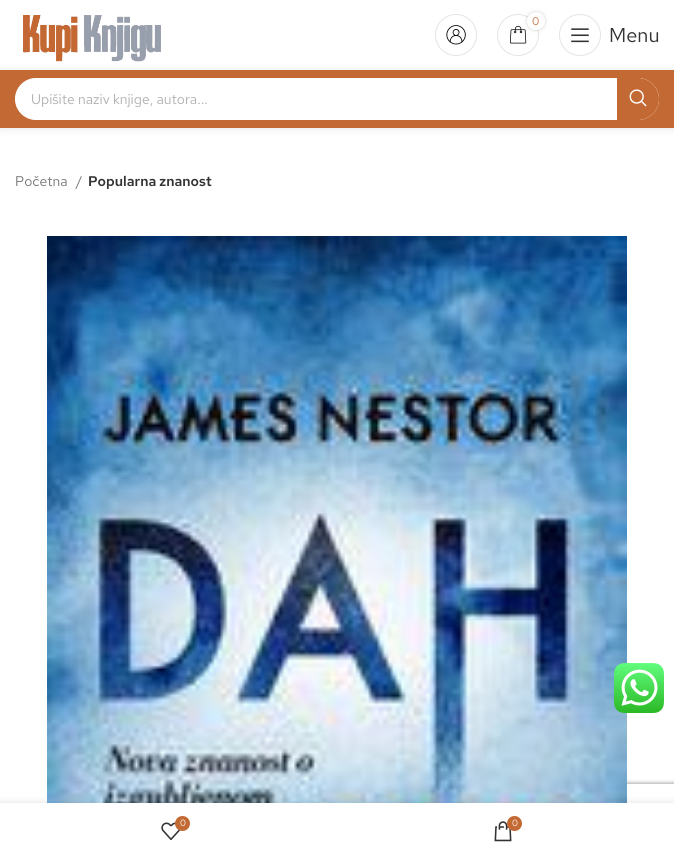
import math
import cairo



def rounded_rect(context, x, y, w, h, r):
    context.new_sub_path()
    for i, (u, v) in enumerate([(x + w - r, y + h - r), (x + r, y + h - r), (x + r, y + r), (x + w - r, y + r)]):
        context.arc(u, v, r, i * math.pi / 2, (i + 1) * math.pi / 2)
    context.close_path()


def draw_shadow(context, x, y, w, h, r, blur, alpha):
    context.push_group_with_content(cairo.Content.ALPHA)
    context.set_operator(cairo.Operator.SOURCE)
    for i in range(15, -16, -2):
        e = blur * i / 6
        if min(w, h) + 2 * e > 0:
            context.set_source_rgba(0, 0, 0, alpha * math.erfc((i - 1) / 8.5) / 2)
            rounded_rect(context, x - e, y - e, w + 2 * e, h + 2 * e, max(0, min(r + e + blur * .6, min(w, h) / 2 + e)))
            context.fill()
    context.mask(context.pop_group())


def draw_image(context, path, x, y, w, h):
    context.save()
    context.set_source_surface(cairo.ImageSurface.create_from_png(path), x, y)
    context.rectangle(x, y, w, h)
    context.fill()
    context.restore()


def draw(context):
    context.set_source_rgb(1, 1, 1)
    context.paint()
    context.set_source_rgb(0, 0, 0)
    draw_shadow(context, 0, 71, 674, 58, 0, 4, 0.1)
    draw_image(context, "images/1.png", 23, 15, 138, 47)
    context.arc(456, 35, 20.5, 0, 2 * math.pi)
    context.set_source_rgb(228 / 255, 228 / 255, 228 / 255)
    context.set_line_width(1)
    context.stroke()
    draw_image(context, "images/2.png", 446, 25, 20, 20)
    context.arc(518, 35, 20.5, 0, 2 * math.pi)
    context.stroke()
    draw_image(context, "images/3.png", 510, 25, 17, 19)
    context.set_source_rgb(0, 0, 0)
    draw_shadow(context, 527, 12, 18, 18, 9, 2, 0.17)
    context.set_source_rgb(1, 1, 1)
    context.arc(536, 21, 9, 0, 2 * math.pi)
    context.fill()
    context.arc(580, 35, 20.5, 0, 2 * math.pi)
    context.set_source_rgb(228 / 255, 228 / 255, 228 / 255)
    context.stroke()
    draw_image(context, "images/4.png", 571, 28, 18, 15)
    context.set_source_rgb(195 / 255, 105 / 255, 51 / 255)
    context.rectangle(0, 70, 674, 58)
    context.fill()
    context.set_source_rgb(1, 1, 1)
    rounded_rect(context, 15.5, 78.5, 643, 41, 20.5)
    context.fill_preserve()
    context.stroke()
    context.set_source_rgb(195 / 255, 105 / 255, 51 / 255)
    context.new_path()
    context.move_to(617, 78)
    context.line_to(638, 78)
    context.curve_to(649.5, 78, 659, 87.5, 659, 99)
    context.curve_to(659, 110.5, 649.5, 120, 638, 120)
    context.line_to(617, 120)
    context.close_path()
    context.fill()
    draw_image(context, "images/5.png", 629, 89, 18, 18)
    context.save()
    context.rectangle(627, 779, 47, 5)
    context.clip()
    context.set_source_rgb(128 / 255, 128 / 255, 128 / 255)
    draw_shadow(context, 604, 784, 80, 60, 2, 2.5, 1)
    context.restore()
    draw_image(context, "images/6.png", 47, 236, 580, 567)
    draw_image(context, "images/7.png", 614, 663, 50, 50)
    context.set_source_rgb(0, 0, 0)
    draw_shadow(context, 0, 803, 674, 55, 0, 4.5, 0.12)
    context.set_source_rgb(1, 1, 1)
    context.rectangle(0, 803, 674, 55)
    context.fill()
    draw_image(context, "images/8.png", 161, 822, 20, 18)
    context.set_source_rgb(195 / 255, 105 / 255, 51 / 255)
    context.arc(182.5, 823.5, 7.5, 0, 2 * math.pi)
    context.fill()
    draw_image(context, "images/9.png", 494, 821, 18, 21)
    context.arc(514.5, 823.5, 7.5, 0, 2 * math.pi)
    context.fill()
    context.select_font_face("Red Hat Text")
    context.set_font_size(11)
    context.move_to(532, 25)
    context.show_text("0")
    context.set_font_size(20)
    context.set_source_rgb(51 / 255, 51 / 255, 51 / 255)
    context.move_to(609, 42)
    context.show_text("Menu")
    context.set_font_size(14)
    context.set_source_rgb(177 / 255, 177 / 255, 177 / 255)
    context.move_to(31, 104)
    context.show_text("Upišite naziv knjige, autora...")
    context.set_source_rgb(118 / 255, 118 / 255, 118 / 255)
    context.move_to(15, 186)
    context.show_text("Početna")
    context.move_to(76, 186)
    context.show_text("/")
    context.select_font_face("Red Hat Text SemiBold")
    context.set_source_rgb(51 / 255, 51 / 255, 51 / 255)
    context.move_to(88, 186)
    context.show_text("Popularna znanost")
    context.select_font_face("Red Hat Text")
    context.set_font_size(9)
    context.set_source_rgb(1, 1, 1)
    context.move_to(180, 826)
    context.show_text("0")
    context.move_to(512, 826)
    context.show_text("0")


surface = cairo.ImageSurface(cairo.Format.RGB24, 674, 858)
context = cairo.Context(surface)
options = cairo.FontOptions()
options.set_hint_metrics(cairo.HintMetrics.OFF)
options.set_hint_style(cairo.HintStyle.NONE)
context.set_font_options(options)
context.set_miter_limit(4)
draw(context)
surface.write_to_png("out.png")
